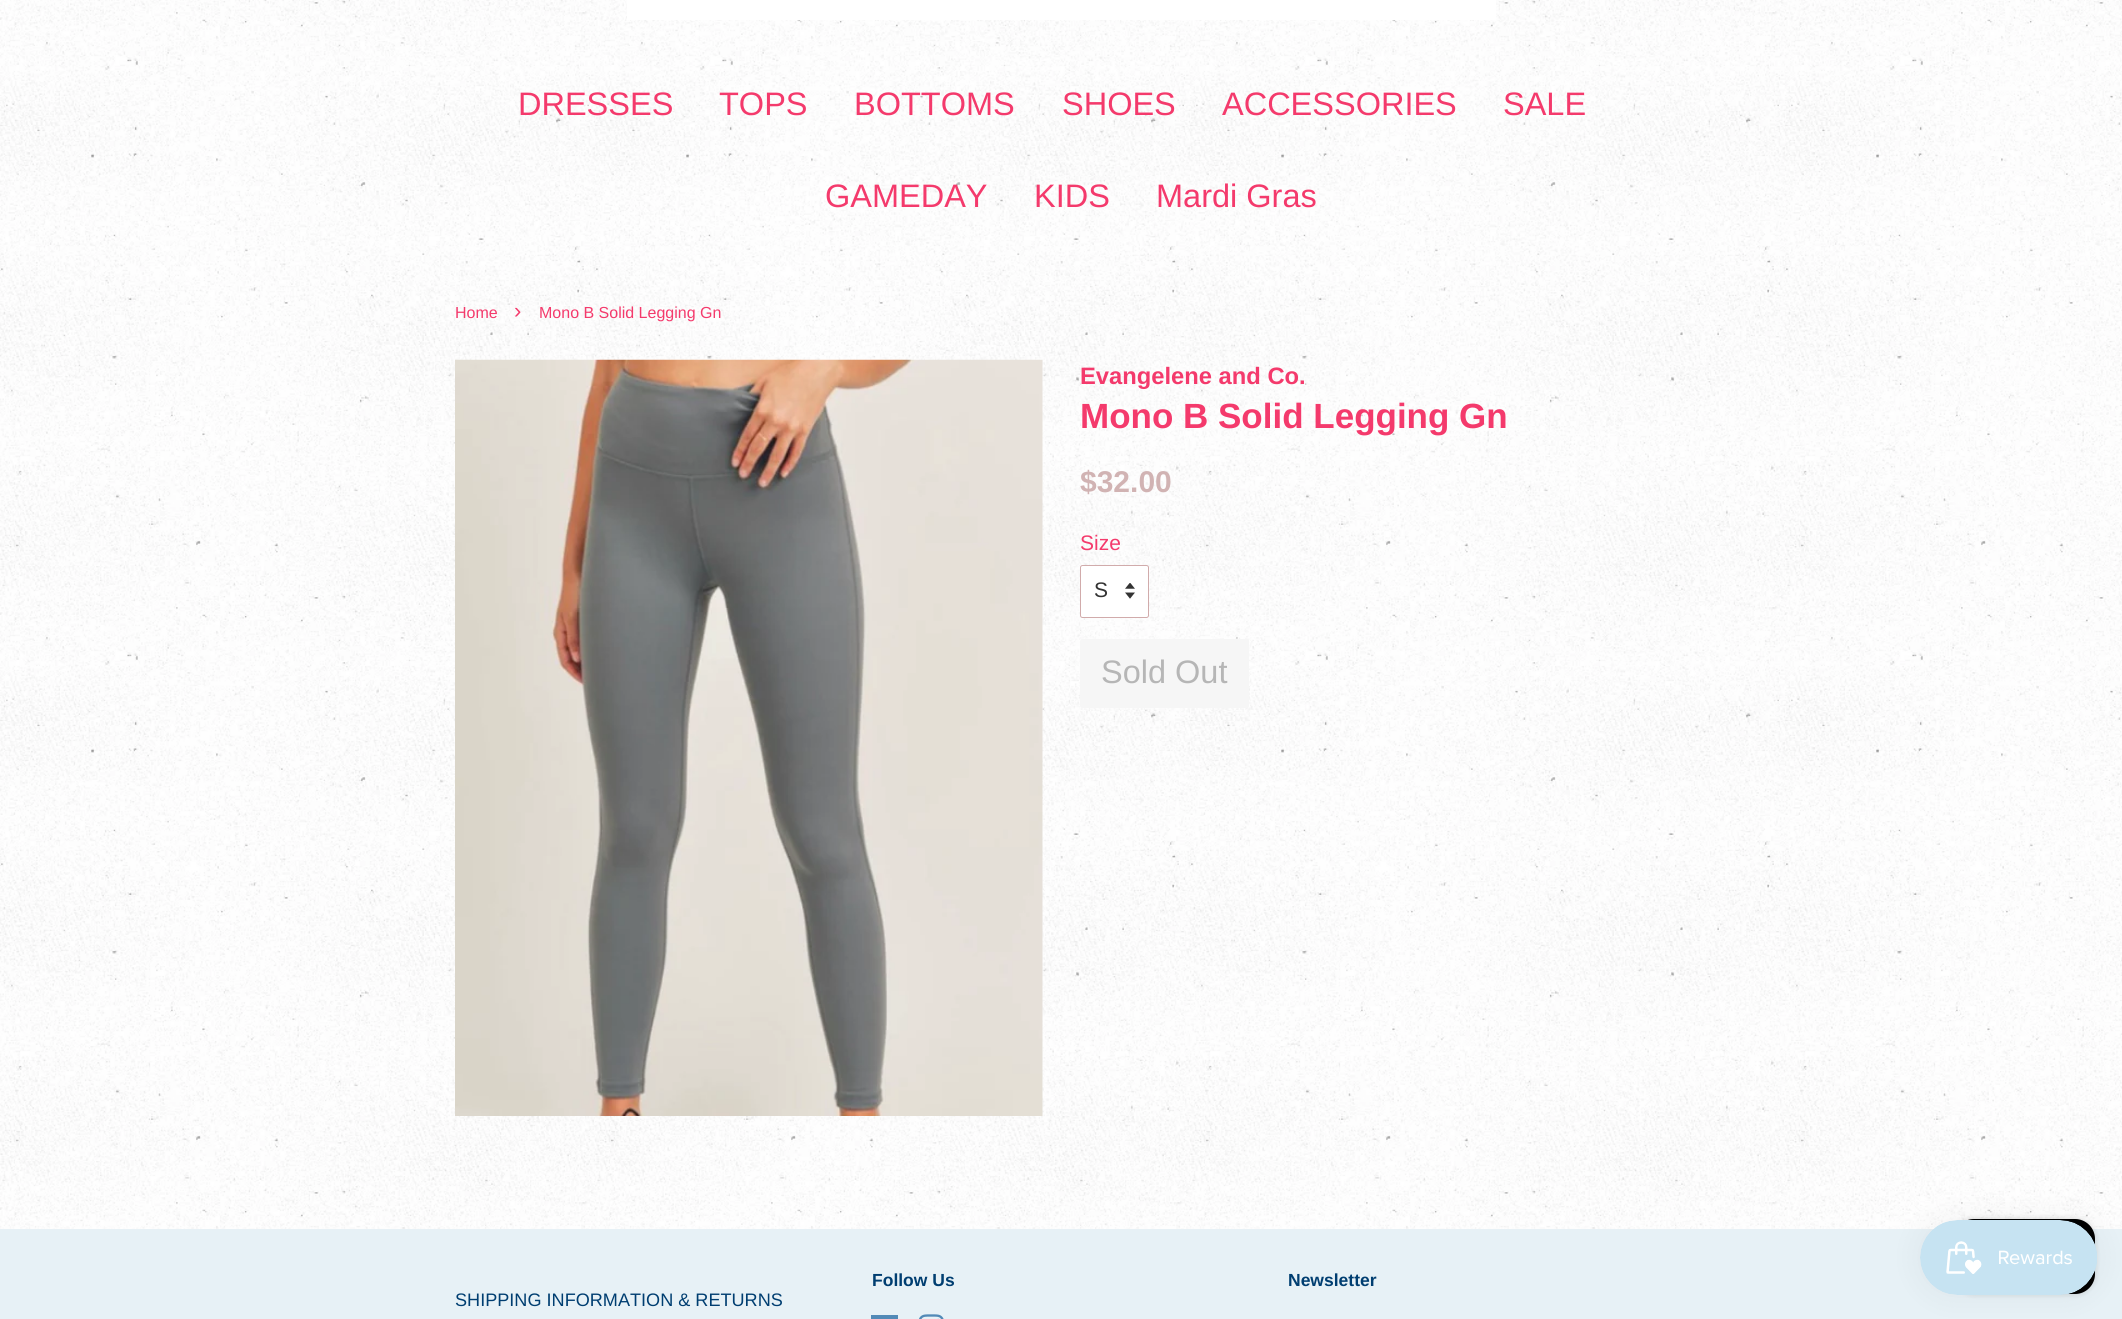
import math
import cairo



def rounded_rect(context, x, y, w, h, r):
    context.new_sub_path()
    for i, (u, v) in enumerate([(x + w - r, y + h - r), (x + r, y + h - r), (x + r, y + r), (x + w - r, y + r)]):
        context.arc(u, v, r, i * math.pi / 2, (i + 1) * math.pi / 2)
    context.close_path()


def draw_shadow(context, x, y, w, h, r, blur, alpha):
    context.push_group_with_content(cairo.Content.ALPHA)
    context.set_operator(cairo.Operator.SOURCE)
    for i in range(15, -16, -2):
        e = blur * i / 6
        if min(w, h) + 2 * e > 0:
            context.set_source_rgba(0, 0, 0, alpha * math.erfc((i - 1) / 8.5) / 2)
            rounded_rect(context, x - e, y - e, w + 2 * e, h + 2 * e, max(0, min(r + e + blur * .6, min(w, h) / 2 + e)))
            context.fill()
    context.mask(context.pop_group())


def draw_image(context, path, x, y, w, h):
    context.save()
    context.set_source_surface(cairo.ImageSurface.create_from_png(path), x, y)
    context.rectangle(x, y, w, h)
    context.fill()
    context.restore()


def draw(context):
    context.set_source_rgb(1, 1, 1)
    context.paint()
    draw_image(context, "images/1.png", 0, 0, 2122, 1229)
    context.set_source_rgb(1, 1, 1)
    context.rectangle(627, 0, 869, 20)
    context.fill()
    draw_image(context, "images/2.png", 455, 359, 588, 757)
    rounded_rect(context, 1080, 565, 69, 53, 2.5)
    context.fill()
    draw_image(context, "images/3.png", 1125, 583, 10, 16)
    rounded_rect(context, 1080.5, 565.5, 68, 52, 2)
    context.set_source_rgb(209 / 255, 171 / 255, 171 / 255)
    context.set_line_width(1)
    context.stroke()
    context.set_source_rgb(246 / 255, 246 / 255, 246 / 255)
    rounded_rect(context, 1080, 639, 169, 69, 2.5)
    context.fill()
    context.set_source_rgb(231 / 255, 241 / 255, 246 / 255)
    context.rectangle(0, 1229, 2122, 90)
    context.fill()
    context.set_source_rgb(0, 0, 0)
    draw_shadow(context, 1954, 1219, 141, 75, 20, 3, 0.15)
    context.set_source_rgb(0, 0, 0)
    rounded_rect(context, 1954, 1219, 141, 75, 20)
    context.fill()
    context.set_source_rgb(0, 0, 0)
    draw_shadow(context, 1920, 1220, 178, 75, 37.5, 15.5, 0.05)
    draw_image(context, "images/4.png", 1920, 1220, 177, 75)
    context.set_source_rgb(82 / 255, 138 / 255, 183 / 255)
    context.rectangle(871, 1315, 27, 4)
    context.fill()
    draw_image(context, "images/5.png", 919, 1314, 25, 5)
    context.select_font_face("Liberation Sans")
    context.set_font_size(32.5)
    context.set_source_rgb(244 / 255, 58 / 255, 108 / 255)
    context.move_to(518, 115)
    context.show_text("DRESSES")
    context.move_to(719, 115)
    context.show_text("TOPS")
    context.move_to(854, 115)
    context.show_text("BOTTOMS")
    context.move_to(1062, 115)
    context.show_text("SHOES")
    context.move_to(1222, 115)
    context.show_text("ACCESSORIES")
    context.move_to(1503, 115)
    context.show_text("SALE")
    context.move_to(825, 207)
    context.show_text("GAMEDAY")
    context.move_to(1034, 207)
    context.show_text("KIDS")
    context.move_to(1156, 207)
    context.show_text("Mardi Gras")
    context.set_font_size(16)
    context.move_to(455, 318)
    context.show_text("Home")
    context.set_font_size(22)
    context.move_to(514, 318)
    context.show_text("›")
    context.set_font_size(16)
    context.move_to(539, 318)
    context.show_text("Mono B Solid Legging Gn")
    context.select_font_face("Liberation Sans", cairo.FontSlant.NORMAL, cairo.FontWeight.BOLD)
    context.set_font_size(23.75)
    context.move_to(1080, 384)
    context.show_text("Evangelene and Co.")
    context.set_font_size(35)
    context.move_to(1080, 428)
    context.show_text("Mono B Solid Legging Gn")
    context.set_font_size(30)
    context.set_source_rgb(209 / 255, 179 / 255, 179 / 255)
    context.move_to(1080, 492)
    context.show_text("$32.00")
    context.select_font_face("Liberation Sans")
    context.set_font_size(21)
    context.set_source_rgb(244 / 255, 58 / 255, 108 / 255)
    context.move_to(1080, 550)
    context.show_text("Size")
    context.set_source_rgb(51 / 255, 51 / 255, 51 / 255)
    context.move_to(1094, 597)
    context.show_text("S")
    context.set_font_size(32.5)
    context.set_source_rgb(182 / 255, 182 / 255, 182 / 255)
    context.move_to(1101, 683)
    context.show_text("Sold Out")
    context.select_font_face("Liberation Sans", cairo.FontSlant.NORMAL, cairo.FontWeight.BOLD)
    context.set_font_size(17.5)
    context.set_source_rgb(0, 62 / 255, 113 / 255)
    context.move_to(872, 1286)
    context.show_text("Follow Us")
    context.move_to(1288, 1286)
    context.show_text("Newsletter")
    context.select_font_face("Liberation Sans")
    context.set_font_size(18.1)
    context.move_to(455, 1306)
    context.show_text("SHIPPING INFORMATION & RETURNS")


surface = cairo.ImageSurface(cairo.Format.RGB24, 2122, 1319)
context = cairo.Context(surface)
options = cairo.FontOptions()
options.set_hint_metrics(cairo.HintMetrics.OFF)
options.set_hint_style(cairo.HintStyle.NONE)
context.set_font_options(options)
context.set_miter_limit(4)
draw(context)
surface.write_to_png("out.png")
